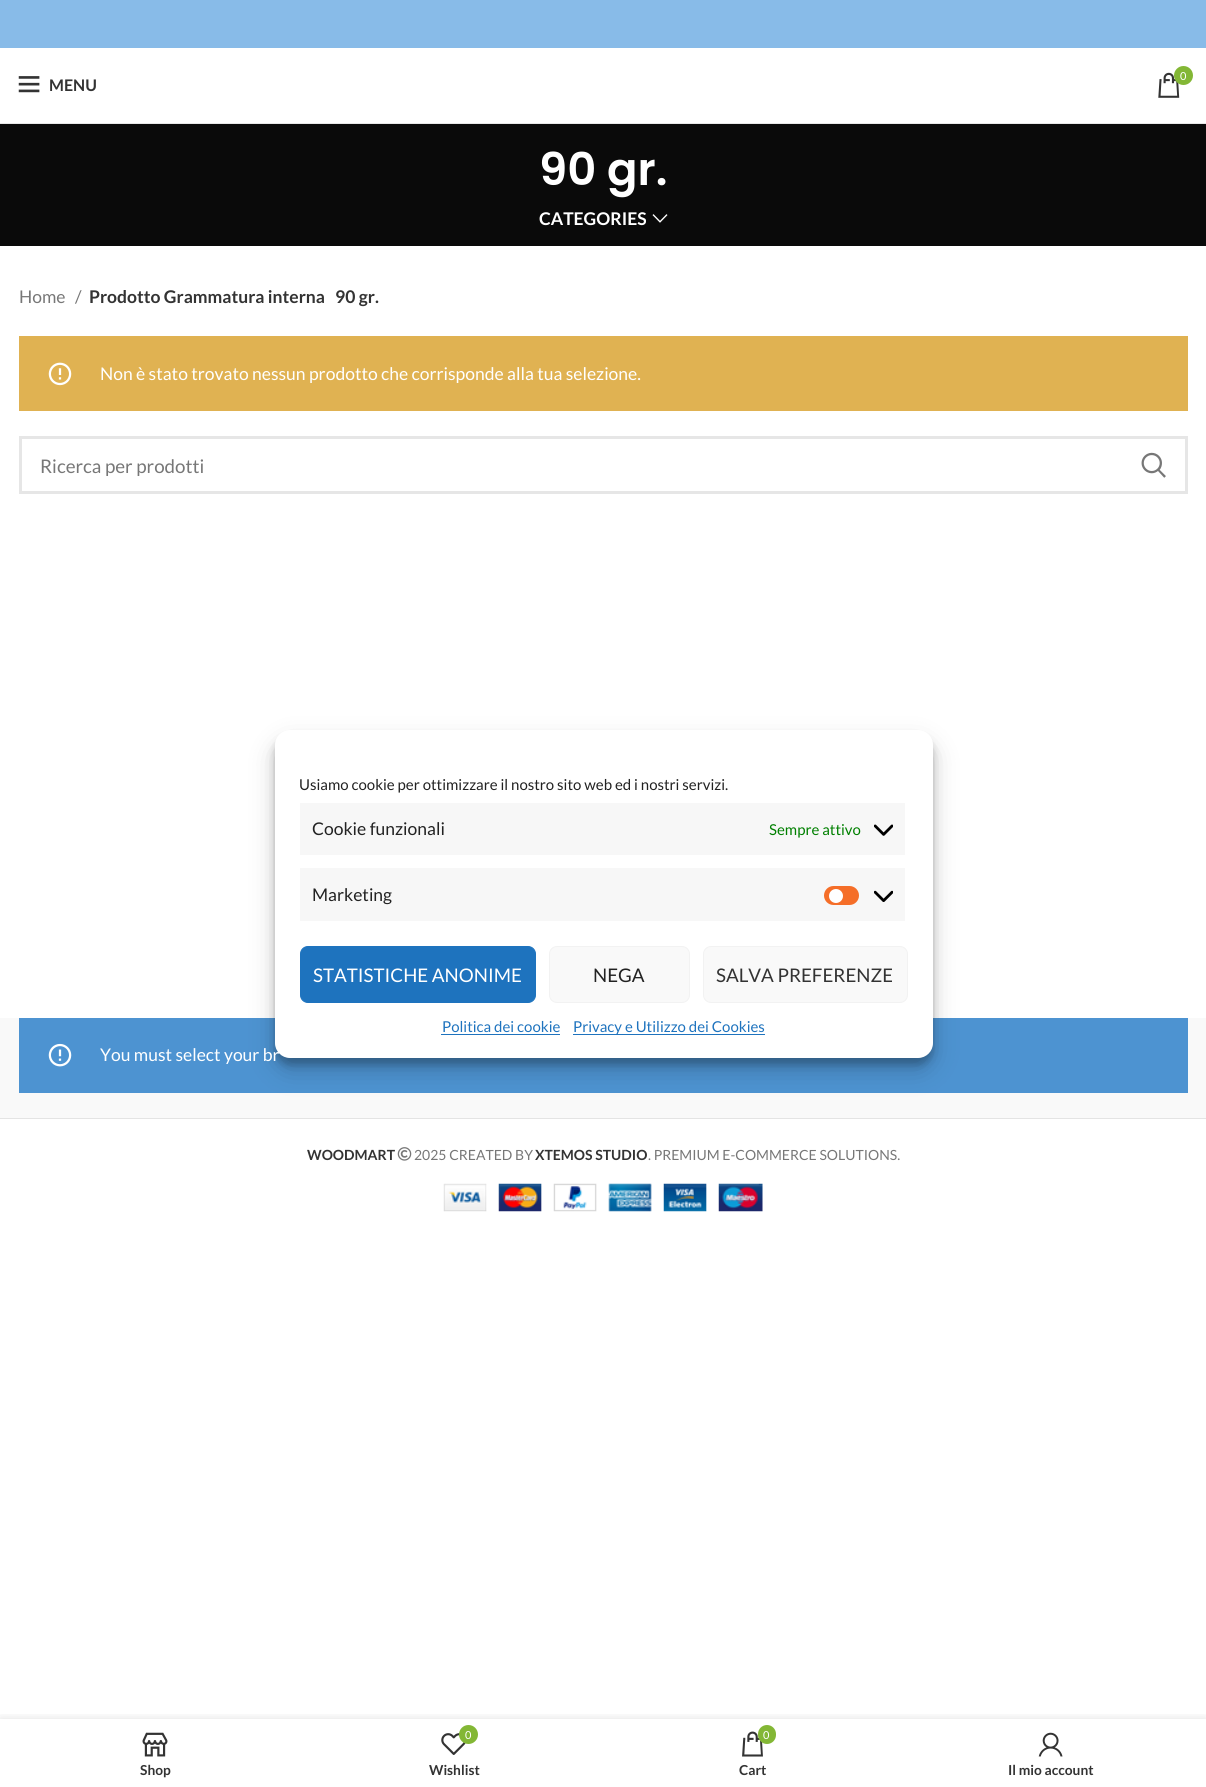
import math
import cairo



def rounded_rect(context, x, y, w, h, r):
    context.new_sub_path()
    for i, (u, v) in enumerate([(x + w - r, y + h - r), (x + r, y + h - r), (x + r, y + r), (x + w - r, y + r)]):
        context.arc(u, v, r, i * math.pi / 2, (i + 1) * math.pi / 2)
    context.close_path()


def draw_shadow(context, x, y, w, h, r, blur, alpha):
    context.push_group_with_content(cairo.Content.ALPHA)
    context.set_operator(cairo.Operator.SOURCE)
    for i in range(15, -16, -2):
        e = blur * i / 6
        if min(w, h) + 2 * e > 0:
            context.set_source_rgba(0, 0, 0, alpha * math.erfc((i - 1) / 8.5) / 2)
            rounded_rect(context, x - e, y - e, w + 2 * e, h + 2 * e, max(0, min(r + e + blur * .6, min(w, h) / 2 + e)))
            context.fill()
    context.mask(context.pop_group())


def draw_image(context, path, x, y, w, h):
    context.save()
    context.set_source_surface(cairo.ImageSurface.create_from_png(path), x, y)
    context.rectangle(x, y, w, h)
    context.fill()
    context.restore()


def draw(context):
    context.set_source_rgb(1, 1, 1)
    context.paint()
    context.set_source_rgb(136 / 255, 187 / 255, 232 / 255)
    context.rectangle(0, 0, 1206, 48)
    context.fill()
    context.set_source_rgb(232 / 255, 232 / 255, 232 / 255)
    context.rectangle(0, 123, 1206, 1)
    context.fill()
    draw_image(context, "images/1.png", 1158, 72, 22, 26)
    context.set_source_rgb(131 / 255, 183 / 255, 53 / 255)
    context.arc(1183.5, 75.5, 9.5, 0, 2 * math.pi)
    context.fill()
    draw_image(context, "images/2.png", 18, 76, 22, 17)
    context.set_source_rgb(10 / 255, 10 / 255, 10 / 255)
    context.rectangle(0, 124, 1206, 122)
    context.fill()
    draw_image(context, "images/3.png", 652, 214, 16, 9)
    context.set_source_rgb(224 / 255, 178 / 255, 82 / 255)
    context.rectangle(19, 336, 1169, 75)
    context.fill()
    draw_image(context, "images/4.png", 48, 362, 24, 24)
    context.rectangle(20.5, 437.5, 1166, 55)
    context.set_source_rgb(230 / 255, 230 / 255, 230 / 255)
    context.set_line_width(3)
    context.stroke()
    draw_image(context, "images/5.png", 1141, 452, 25, 26)
    context.set_source_rgb(249 / 255, 249 / 255, 249 / 255)
    context.rectangle(0, 1018, 1206, 100)
    context.fill()
    context.set_source_rgb(77 / 255, 147 / 255, 209 / 255)
    context.rectangle(19, 1018, 1169, 75)
    context.fill()
    draw_image(context, "images/6.png", 48, 1043, 24, 24)
    context.set_source_rgb(228 / 255, 228 / 255, 228 / 255)
    context.rectangle(0, 1118, 1206, 1)
    context.fill()
    draw_image(context, "images/7.png", 397, 1147, 15, 14)
    draw_image(context, "images/8.png", 443, 1183, 320, 29)
    context.set_source_rgb(0, 0, 0)
    draw_shadow(context, 275, 738, 658, 327, 15, 4, 0.23)
    draw_shadow(context, 275, 743, 658, 327, 15, 12.5, 0.19)
    context.set_source_rgb(1, 1, 1)
    rounded_rect(context, 275, 730, 658, 328, 15)
    context.fill()
    context.set_source_rgb(247 / 255, 247 / 255, 247 / 255)
    context.rectangle(300, 803, 605, 52)
    context.fill()
    draw_image(context, "images/9.png", 874, 824, 19, 12)
    context.rectangle(300, 868, 605, 53)
    context.fill()
    context.set_source_rgb(245 / 255, 110 / 255, 40 / 255)
    rounded_rect(context, 824, 886, 35, 19, 9.5)
    context.fill()
    context.set_source_rgb(1, 1, 1)
    context.arc(836, 896, 7, 0, 2 * math.pi)
    context.fill()
    draw_image(context, "images/10.png", 874, 890, 19, 12)
    context.set_source_rgb(30 / 255, 115 / 255, 190 / 255)
    rounded_rect(context, 300.5, 946.5, 235, 56, 7.5)
    context.fill_preserve()
    context.set_line_width(1)
    context.stroke()
    context.set_source_rgb(249 / 255, 249 / 255, 249 / 255)
    rounded_rect(context, 549.5, 946.5, 140, 56, 7.5)
    context.fill_preserve()
    context.set_source_rgb(242 / 255, 242 / 255, 242 / 255)
    context.stroke()
    context.set_source_rgb(249 / 255, 249 / 255, 249 / 255)
    rounded_rect(context, 703.5, 946.5, 204, 56, 7.5)
    context.fill_preserve()
    context.set_source_rgb(242 / 255, 242 / 255, 242 / 255)
    context.stroke()
    context.set_source_rgb(30 / 255, 115 / 255, 190 / 255)
    context.rectangle(441, 1034, 119, 1)
    context.fill()
    context.rectangle(573, 1034, 192, 1)
    context.fill()
    context.save()
    context.rectangle(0, 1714, 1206, 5)
    context.clip()
    context.set_source_rgb(0, 0, 0)
    draw_shadow(context, 0, 1719, 1206, 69, 0, 5.5, 0.12)
    context.restore()
    draw_image(context, "images/11.png", 142, 1732, 26, 25)
    draw_image(context, "images/12.png", 441, 1733, 25, 22)
    context.set_source_rgb(131 / 255, 183 / 255, 53 / 255)
    context.arc(468.5, 1734.5, 9.5, 0, 2 * math.pi)
    context.fill()
    draw_image(context, "images/13.png", 742, 1731, 21, 26)
    rounded_rect(context, 758, 1725, 18, 19, 9)
    context.fill()
    draw_image(context, "images/14.png", 1038, 1732, 25, 25)
    context.select_font_face("Lato")
    context.set_font_size(11)
    context.set_source_rgb(1, 1, 1)
    context.move_to(1180, 80)
    context.show_text("0")
    context.select_font_face("Lato", cairo.FontSlant.NORMAL, cairo.FontWeight.BOLD)
    context.set_font_size(16)
    context.set_source_rgb(51 / 255, 51 / 255, 51 / 255)
    context.move_to(49, 91)
    context.show_text("MENU")
    context.select_font_face("Poppins SemiBold")
    context.set_font_size(45)
    context.set_source_rgb(1, 1, 1)
    context.move_to(539, 185)
    context.show_text("90 gr.")
    context.select_font_face("Lato", cairo.FontSlant.NORMAL, cairo.FontWeight.BOLD)
    context.set_font_size(17.5)
    context.move_to(539, 225)
    context.show_text("CATEGORIES")
    context.select_font_face("Lato")
    context.set_source_rgb(119 / 255, 119 / 255, 119 / 255)
    context.move_to(19, 303)
    context.show_text("Home")
    context.move_to(75, 303)
    context.show_text("/")
    context.select_font_face("Lato", cairo.FontSlant.NORMAL, cairo.FontWeight.BOLD)
    context.set_source_rgb(51 / 255, 51 / 255, 51 / 255)
    context.move_to(89, 303)
    context.show_text("Prodotto Grammatura interna")
    context.move_to(335, 303)
    context.show_text("90 gr.")
    context.select_font_face("Lato")
    context.set_source_rgb(1, 1, 1)
    context.move_to(100, 380)
    context.show_text("Non è stato trovato nessun prodotto che corrisponde alla tua selezione.")
    context.save()
    context.rectangle(40, 454, 1083, 22)
    context.clip()
    context.set_font_size(18.75)
    context.set_source_rgb(119 / 255, 119 / 255, 119 / 255)
    context.move_to(40, 473)
    context.show_text("Ricerca per prodotti")
    context.restore()
    context.move_to(100, 1061)
    context.show_text("You must select your br")
    context.select_font_face("Lato", cairo.FontSlant.NORMAL, cairo.FontWeight.BOLD)
    context.set_font_size(14)
    context.set_source_rgb(51 / 255, 51 / 255, 51 / 255)
    context.move_to(307, 1160)
    context.show_text("WOODMART")
    context.select_font_face("Lato")
    context.set_source_rgb(119 / 255, 119 / 255, 119 / 255)
    context.move_to(414, 1160)
    context.show_text("2025 CREATED BY")
    context.select_font_face("Lato", cairo.FontSlant.NORMAL, cairo.FontWeight.BOLD)
    context.set_source_rgb(51 / 255, 51 / 255, 51 / 255)
    context.move_to(535, 1160)
    context.show_text("XTEMOS STUDIO")
    context.select_font_face("Lato")
    context.set_source_rgb(119 / 255, 119 / 255, 119 / 255)
    context.move_to(648, 1160)
    context.show_text(". PREMIUM E-COMMERCE SOLUTIONS.")
    context.set_font_size(15)
    context.set_source_rgb(34 / 255, 34 / 255, 34 / 255)
    context.move_to(299, 790)
    context.show_text("Usiamo cookie per ottimizzare il nostro sito web ed i nostri servizi.")
    context.set_font_size(17.5)
    context.move_to(312, 835)
    context.show_text("Cookie funzionali")
    context.set_font_size(15)
    context.set_source_rgb(0, 128 / 255, 0)
    context.move_to(769, 835)
    context.show_text("Sempre attivo")
    context.set_font_size(17.5)
    context.set_source_rgb(34 / 255, 34 / 255, 34 / 255)
    context.move_to(312, 901)
    context.show_text("Marketing")
    context.set_font_size(18.75)
    context.set_source_rgb(1, 1, 1)
    context.move_to(313, 982)
    context.show_text("STATISTICHE ANONIME")
    context.set_source_rgb(34 / 255, 34 / 255, 34 / 255)
    context.move_to(593, 982)
    context.show_text("NEGA")
    context.set_source_rgb(51 / 255, 51 / 255, 51 / 255)
    context.move_to(716, 982)
    context.show_text("SALVA PREFERENZE")
    context.set_font_size(15)
    context.set_source_rgb(30 / 255, 115 / 255, 190 / 255)
    context.move_to(442, 1032)
    context.show_text("Politica dei cookie")
    context.move_to(573, 1032)
    context.show_text("Privacy e Utilizzo dei Cookies")
    context.select_font_face("Lato", cairo.FontSlant.NORMAL, cairo.FontWeight.BOLD)
    context.set_font_size(13.75)
    context.set_source_rgb(51 / 255, 51 / 255, 51 / 255)
    context.move_to(140, 1775)
    context.show_text("Shop")
    context.select_font_face("Lato")
    context.set_font_size(11)
    context.set_source_rgb(1, 1, 1)
    context.move_to(465, 1739)
    context.show_text("0")
    context.select_font_face("Lato", cairo.FontSlant.NORMAL, cairo.FontWeight.BOLD)
    context.set_font_size(13.75)
    context.set_source_rgb(51 / 255, 51 / 255, 51 / 255)
    context.move_to(429, 1775)
    context.show_text("Wishlist")
    context.select_font_face("Lato")
    context.set_font_size(11)
    context.set_source_rgb(1, 1, 1)
    context.move_to(763, 1739)
    context.show_text("0")
    context.select_font_face("Lato", cairo.FontSlant.NORMAL, cairo.FontWeight.BOLD)
    context.set_font_size(13.75)
    context.set_source_rgb(51 / 255, 51 / 255, 51 / 255)
    context.move_to(739, 1775)
    context.show_text("Cart")
    context.move_to(1008, 1775)
    context.show_text("Il mio account")


surface = cairo.ImageSurface(cairo.Format.RGB24, 1206, 1787)
context = cairo.Context(surface)
options = cairo.FontOptions()
options.set_hint_metrics(cairo.HintMetrics.OFF)
options.set_hint_style(cairo.HintStyle.NONE)
context.set_font_options(options)
context.set_miter_limit(4)
draw(context)
surface.write_to_png("out.png")
